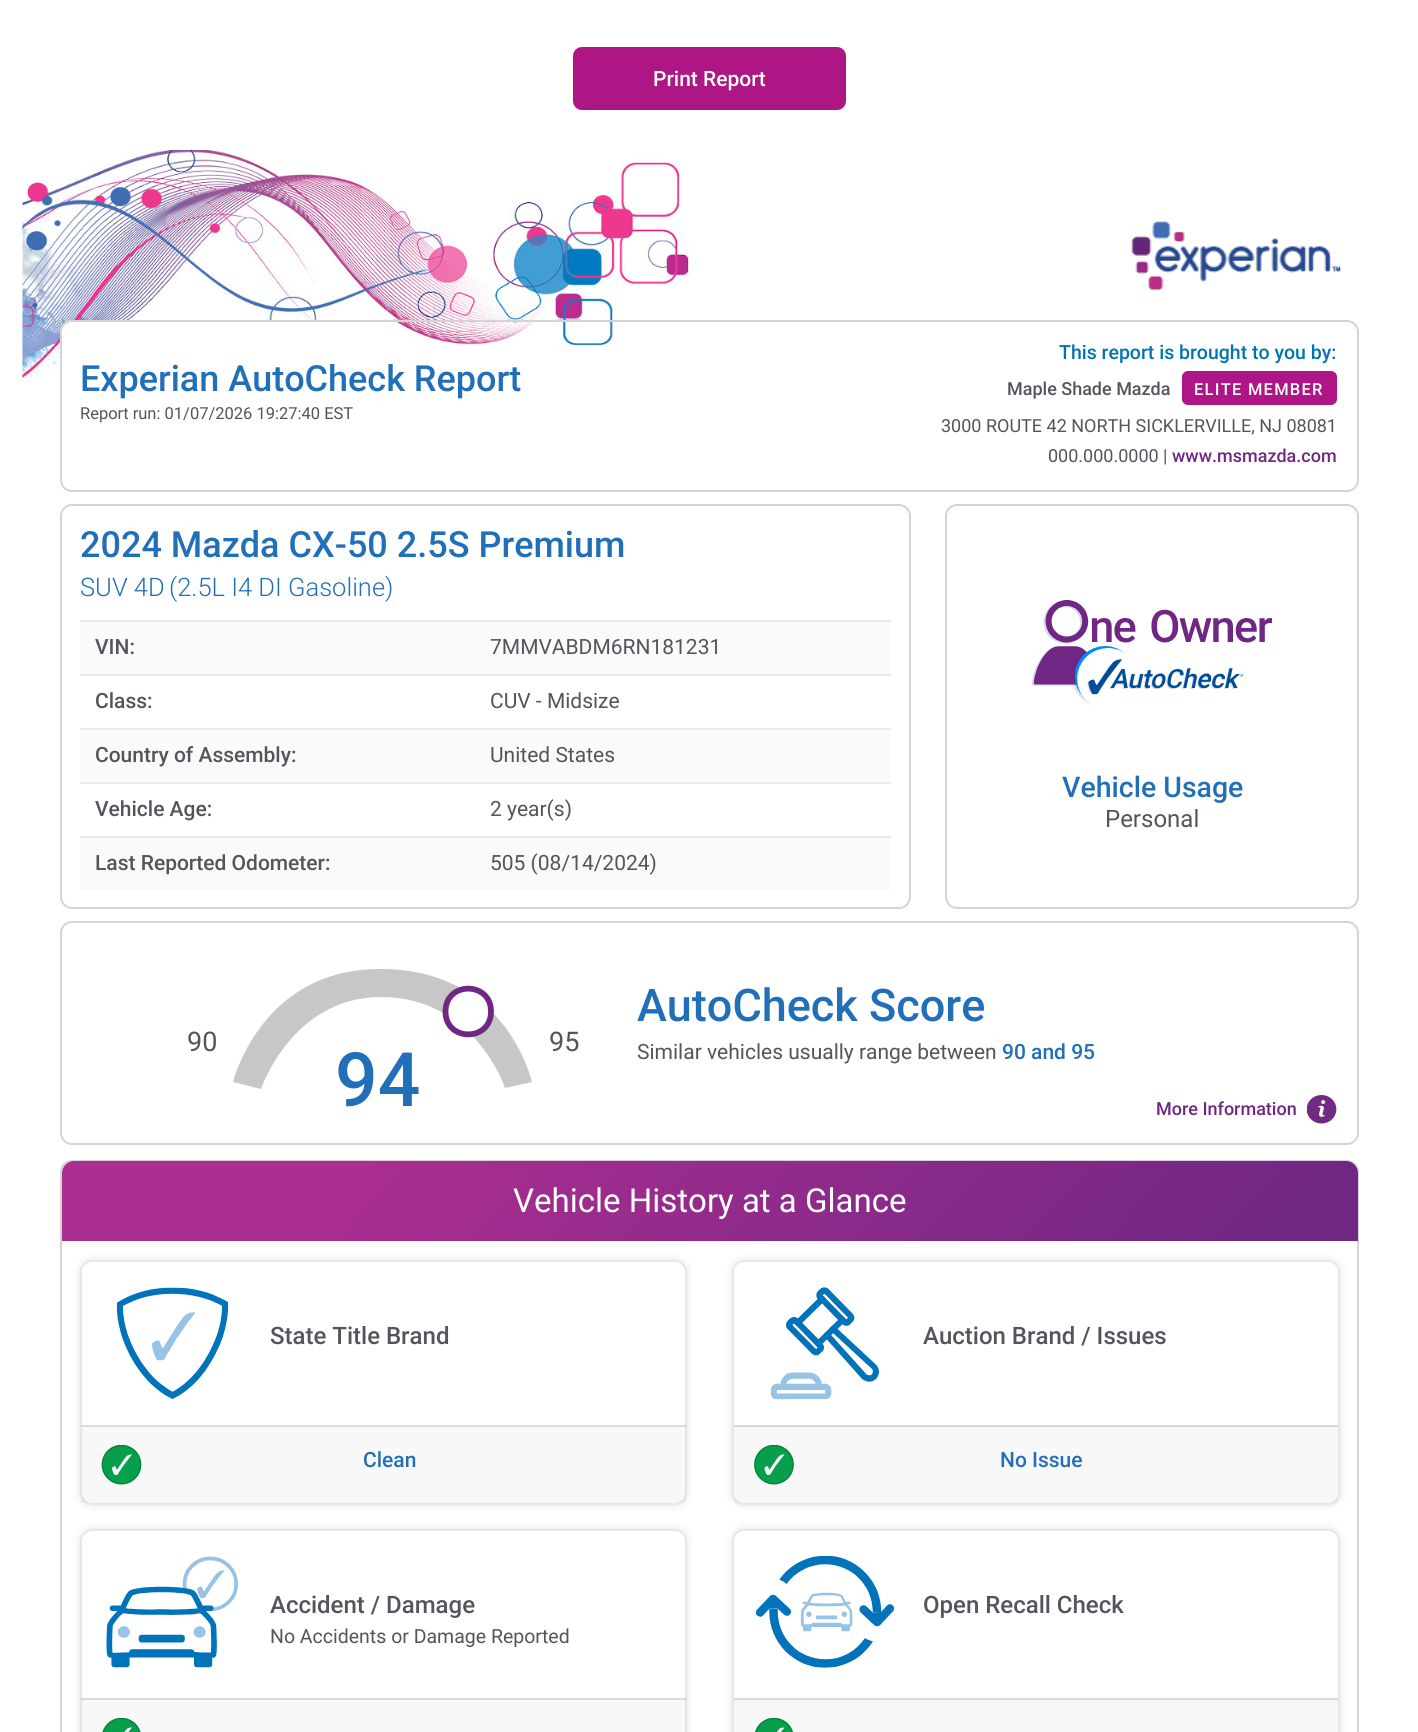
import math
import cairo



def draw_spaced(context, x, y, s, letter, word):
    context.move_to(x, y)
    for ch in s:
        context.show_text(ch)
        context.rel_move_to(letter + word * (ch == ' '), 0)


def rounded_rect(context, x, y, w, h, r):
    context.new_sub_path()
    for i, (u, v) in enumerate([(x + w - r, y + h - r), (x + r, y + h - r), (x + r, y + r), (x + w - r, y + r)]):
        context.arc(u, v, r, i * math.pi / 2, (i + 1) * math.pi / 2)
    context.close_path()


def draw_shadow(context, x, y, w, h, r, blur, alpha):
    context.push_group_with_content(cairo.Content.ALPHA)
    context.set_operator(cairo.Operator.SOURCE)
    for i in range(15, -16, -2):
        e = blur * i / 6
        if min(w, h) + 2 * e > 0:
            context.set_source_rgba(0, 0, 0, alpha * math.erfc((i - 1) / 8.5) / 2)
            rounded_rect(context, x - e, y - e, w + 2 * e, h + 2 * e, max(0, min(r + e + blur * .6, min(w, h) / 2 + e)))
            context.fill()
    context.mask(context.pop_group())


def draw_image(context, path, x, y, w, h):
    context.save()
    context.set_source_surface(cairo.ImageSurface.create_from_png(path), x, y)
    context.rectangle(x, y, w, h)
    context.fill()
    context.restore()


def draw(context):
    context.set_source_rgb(1, 1, 1)
    context.paint()
    context.set_source_rgb(175 / 255, 22 / 255, 133 / 255)
    rounded_rect(context, 573, 47, 273, 63, 9)
    context.fill()
    draw_image(context, "images/1.png", 22, 150, 669, 234)
    draw_image(context, "images/2.png", 1131, 221, 210, 69)
    context.set_source_rgb(1, 1, 1)
    rounded_rect(context, 60, 320, 1299, 172, 12)
    context.fill()
    draw_image(context, "images/3.png", 389, 319, 228, 29)
    rounded_rect(context, 61, 321, 1297, 170, 11)
    context.set_source_rgb(212 / 255, 212 / 255, 212 / 255)
    context.stroke()
    context.set_source_rgb(175 / 255, 22 / 255, 133 / 255)
    rounded_rect(context, 1182, 371, 155, 34, 6)
    context.fill()
    rounded_rect(context, 61, 505, 849, 403, 11)
    context.set_source_rgb(212 / 255, 212 / 255, 212 / 255)
    context.stroke()
    context.set_source_rgb(250 / 255, 250 / 255, 250 / 255)
    context.rectangle(80, 622, 811, 52)
    context.fill()
    context.set_source_rgb(235 / 255, 235 / 255, 235 / 255)
    context.rectangle(80, 620, 811, 2)
    context.fill()
    context.rectangle(80, 674, 811, 2)
    context.fill()
    context.set_source_rgb(250 / 255, 250 / 255, 250 / 255)
    context.rectangle(80, 730, 811, 52)
    context.fill()
    context.set_source_rgb(235 / 255, 235 / 255, 235 / 255)
    context.rectangle(80, 728, 811, 2)
    context.fill()
    context.rectangle(80, 782, 811, 2)
    context.fill()
    context.set_source_rgb(250 / 255, 250 / 255, 250 / 255)
    context.rectangle(80, 838, 811, 52)
    context.fill()
    context.set_source_rgb(235 / 255, 235 / 255, 235 / 255)
    context.rectangle(80, 836, 811, 2)
    context.fill()
    rounded_rect(context, 946, 505, 412, 403, 11)
    context.set_source_rgb(212 / 255, 212 / 255, 212 / 255)
    context.stroke()
    draw_image(context, "images/4.png", 1032, 600, 240, 106)
    rounded_rect(context, 61, 922, 1297, 222, 11)
    context.stroke()
    context.set_source_rgb(199 / 255, 199 / 255, 199 / 255)
    context.new_path()
    context.move_to(233, 1082)
    context.line_to(261, 1089)
    context.curve_to(261, 1089, 292, 997, 381, 997)
    context.curve_to(475, 997, 505, 1088, 505, 1088)
    context.line_to(532, 1082)
    context.curve_to(532, 1083, 508, 969, 381, 969)
    context.curve_to(261, 968, 233, 1082, 233, 1082)
    context.close_path()
    context.fill()
    context.set_source_rgb(1, 1, 1)
    context.new_path()
    context.move_to(491, 1012)
    context.curve_to(491, 1042, 445, 1042, 445, 1012)
    context.curve_to(445, 981, 491, 981, 491, 1012)
    context.fill()
    context.new_path()
    context.move_to(491, 1011.5)
    context.curve_to(491, 1042, 445.5, 1042, 445.5, 1011.5)
    context.curve_to(445.5, 981, 491, 981, 491, 1011.5)
    context.close_path()
    context.set_source_rgb(112 / 255, 39 / 255, 132 / 255)
    context.set_line_width(5.8)
    context.stroke()
    draw_image(context, "images/5.png", 1307, 1095, 30, 29)
    rounded_rect(context, 61, 1161, 1297, 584, 11)
    context.set_source_rgb(212 / 255, 212 / 255, 212 / 255)
    context.set_line_width(2)
    context.stroke()
    gradient = cairo.LinearGradient(1065, 1544, 354, 858)
    gradient.add_color_stop_rgba(0.06, 112 / 255, 39 / 255, 132 / 255, 1)
    gradient.add_color_stop_rgba(0.8, 173 / 255, 46 / 255, 145 / 255, 1)
    context.set_source(gradient)
    context.new_path()
    context.move_to(74, 1161)
    context.line_to(1346, 1161)
    context.curve_to(1352.5, 1161, 1358, 1166.5, 1358, 1173)
    context.line_to(1358, 1241)
    context.line_to(62, 1241)
    context.line_to(62, 1173)
    context.curve_to(62, 1166.5, 67.5, 1161, 74, 1161)
    context.close_path()
    context.fill()
    context.set_source_rgb(0, 0, 0)
    draw_shadow(context, 80, 1260, 607, 245, 12, 4.5, 0.12)
    context.set_source_rgb(1, 1, 1)
    rounded_rect(context, 81, 1261, 605, 243, 11)
    context.fill_preserve()
    context.set_source_rgb(231 / 255, 231 / 255, 231 / 255)
    context.stroke()
    draw_image(context, "images/6.png", 116, 1287, 112, 112)
    context.set_source_rgba(0, 0, 0, 0.03)
    context.rectangle(81, 1425, 605, 78)
    context.fill()
    context.set_source_rgba(0, 0, 0, 0.12)
    context.rectangle(81, 1425, 605, 2)
    context.fill()
    draw_image(context, "images/7.png", 101, 1445, 41, 40)
    context.set_source_rgb(0, 0, 0)
    draw_shadow(context, 732, 1260, 608, 245, 12, 4.5, 0.12)
    context.set_source_rgb(1, 1, 1)
    rounded_rect(context, 733, 1261, 606, 243, 11)
    context.fill_preserve()
    context.set_source_rgb(231 / 255, 231 / 255, 231 / 255)
    context.stroke()
    draw_image(context, "images/8.png", 771, 1287, 108, 113)
    context.set_source_rgba(0, 0, 0, 0.03)
    context.rectangle(734, 1427, 604, 76)
    context.fill()
    context.set_source_rgb(216 / 255, 216 / 255, 216 / 255)
    context.rectangle(734, 1425, 604, 2)
    context.fill()
    draw_image(context, "images/9.png", 754, 1445, 40, 40)
    context.set_source_rgb(0, 0, 0)
    draw_shadow(context, 80, 1529, 607, 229, 12, 4.5, 0.12)
    context.set_source_rgb(1, 1, 1)
    rounded_rect(context, 81, 1530, 605, 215, 11)
    context.fill_preserve()
    context.set_source_rgb(231 / 255, 231 / 255, 231 / 255)
    context.stroke()
    draw_image(context, "images/10.png", 106, 1556, 132, 112)
    context.set_source_rgba(0, 0, 0, 0.03)
    context.rectangle(81, 1698, 605, 34)
    context.fill()
    context.set_source_rgba(0, 0, 0, 0.12)
    context.rectangle(81, 1698, 605, 2)
    context.fill()
    draw_image(context, "images/11.png", 102, 1718, 39, 14)
    context.set_source_rgb(0, 0, 0)
    draw_shadow(context, 732, 1529, 608, 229, 12, 4.5, 0.12)
    context.set_source_rgb(1, 1, 1)
    rounded_rect(context, 733, 1530, 606, 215, 11)
    context.fill_preserve()
    context.set_source_rgb(231 / 255, 231 / 255, 231 / 255)
    context.stroke()
    draw_image(context, "images/12.png", 756, 1556, 138, 112)
    context.set_source_rgb(247 / 255, 247 / 255, 247 / 255)
    context.rectangle(734, 1700, 604, 32)
    context.fill()
    context.set_source_rgb(216 / 255, 216 / 255, 216 / 255)
    context.rectangle(734, 1698, 604, 2)
    context.fill()
    draw_image(context, "images/13.png", 755, 1718, 38, 14)
    context.select_font_face("Roboto Medium")
    context.set_font_size(21)
    context.set_source_rgb(1, 1, 1)
    context.move_to(653, 86)
    context.show_text("Print Report")
    context.set_font_size(36)
    context.set_source_rgb(33 / 255, 111 / 255, 184 / 255)
    context.move_to(80, 391)
    context.show_text("Experian AutoCheck Report")
    context.select_font_face("Roboto")
    context.set_font_size(16.5)
    context.set_source_rgb(82 / 255, 85 / 255, 91 / 255)
    context.move_to(80, 419)
    context.show_text("Report run: 01/07/2026 19:27:40 EST")
    context.select_font_face("Roboto Medium")
    context.set_font_size(19.5)
    context.set_source_rgb(0, 115 / 255, 178 / 255)
    context.move_to(1059, 359)
    context.show_text("This report is brought to you by:")
    context.set_font_size(18)
    context.set_source_rgb(82 / 255, 85 / 255, 91 / 255)
    context.move_to(1007, 395)
    context.show_text("Maple Shade Mazda")
    context.set_font_size(16.5)
    context.set_source_rgb(1, 1, 1)
    draw_spaced(context, 1194, 395, "ELITE MEMBER", 1.25, 0)
    context.select_font_face("Roboto")
    context.set_font_size(18)
    context.set_source_rgb(82 / 255, 85 / 255, 91 / 255)
    context.move_to(941, 432)
    context.show_text("3000 ROUTE 42 NORTH SICKLERVILLE, NJ 08081")
    context.move_to(1048, 462)
    context.show_text("000.000.0000 |")
    context.select_font_face("Roboto Medium")
    context.set_source_rgb(112 / 255, 39 / 255, 132 / 255)
    context.move_to(1172, 462)
    context.show_text("www.msmazda.com")
    context.set_font_size(36)
    context.set_source_rgb(33 / 255, 111 / 255, 184 / 255)
    context.move_to(80, 557)
    context.show_text("2024 Mazda CX-50 2.5S Premium")
    context.select_font_face("Roboto Light")
    context.set_font_size(25.5)
    context.move_to(80, 596)
    context.show_text("SUV 4D")
    context.move_to(169, 596)
    context.show_text("(2.5L I4 DI Gasoline)")
    context.select_font_face("Roboto Medium")
    context.set_font_size(21)
    context.set_source_rgb(82 / 255, 85 / 255, 91 / 255)
    context.move_to(95, 654)
    context.show_text("VIN:")
    context.select_font_face("Roboto")
    context.move_to(490, 654)
    context.show_text("7MMVABDM6RN181231")
    context.select_font_face("Roboto Medium")
    context.move_to(95, 708)
    context.show_text("Class:")
    context.select_font_face("Roboto")
    context.move_to(490, 708)
    context.show_text("CUV - Midsize")
    context.select_font_face("Roboto Medium")
    context.move_to(95, 762)
    context.show_text("Country of Assembly:")
    context.select_font_face("Roboto")
    context.move_to(490, 762)
    context.show_text("United States")
    context.select_font_face("Roboto Medium")
    context.move_to(95, 816)
    context.show_text("Vehicle Age:")
    context.select_font_face("Roboto")
    context.move_to(490, 816)
    context.show_text("2 year(s)")
    context.select_font_face("Roboto Medium")
    context.move_to(95, 870)
    context.show_text("Last Reported Odometer:")
    context.select_font_face("Roboto")
    context.move_to(490, 870)
    context.show_text("505 (08/14/2024)")
    context.select_font_face("Roboto Medium")
    context.set_font_size(28.5)
    context.set_source_rgb(33 / 255, 111 / 255, 184 / 255)
    context.move_to(1062, 797)
    context.show_text("Vehicle Usage")
    context.select_font_face("Roboto")
    context.set_font_size(24)
    context.set_source_rgb(82 / 255, 85 / 255, 91 / 255)
    context.move_to(1105, 827)
    context.show_text("Personal")
    context.set_font_size(27)
    context.move_to(187, 1051)
    context.show_text("90")
    context.move_to(549, 1051)
    context.show_text("95")
    context.select_font_face("Roboto Medium")
    context.set_font_size(75)
    context.set_source_rgb(33 / 255, 111 / 255, 184 / 255)
    context.move_to(335, 1106)
    context.show_text("94")
    context.set_font_size(45)
    context.move_to(637, 1021)
    context.show_text("AutoCheck Score")
    context.select_font_face("Roboto")
    context.set_font_size(21)
    context.set_source_rgb(82 / 255, 85 / 255, 91 / 255)
    context.move_to(637, 1059)
    context.show_text("Similar vehicles usually range between")
    context.select_font_face("Roboto Medium")
    context.set_source_rgb(33 / 255, 111 / 255, 184 / 255)
    context.move_to(1002, 1059)
    context.show_text("90 and 95")
    context.set_font_size(18)
    context.set_source_rgb(112 / 255, 39 / 255, 132 / 255)
    context.move_to(1156, 1115)
    context.show_text("More Information")
    context.select_font_face("Roboto")
    context.set_font_size(33)
    context.set_source_rgb(1, 1, 1)
    context.move_to(513, 1212)
    context.show_text("Vehicle History at a Glance")
    context.select_font_face("Roboto Medium")
    context.set_font_size(24)
    context.set_source_rgb(82 / 255, 85 / 255, 91 / 255)
    context.move_to(270, 1344)
    context.show_text("State Title Brand")
    context.set_font_size(21)
    context.set_source_rgb(33 / 255, 111 / 255, 184 / 255)
    context.move_to(363, 1467)
    context.show_text("Clean")
    context.set_font_size(24)
    context.set_source_rgb(82 / 255, 85 / 255, 91 / 255)
    context.move_to(923, 1344)
    context.show_text("Auction Brand / Issues")
    context.set_font_size(21)
    context.set_source_rgb(33 / 255, 111 / 255, 184 / 255)
    context.move_to(1000, 1467)
    context.show_text("No Issue")
    context.set_font_size(24)
    context.set_source_rgb(82 / 255, 85 / 255, 91 / 255)
    context.move_to(270, 1613)
    context.show_text("Accident / Damage")
    context.select_font_face("Roboto")
    context.set_font_size(19.5)
    context.move_to(270, 1643)
    context.show_text("No Accidents or Damage Reported")
    context.select_font_face("Roboto Medium")
    context.set_font_size(24)
    context.move_to(923, 1613)
    context.show_text("Open Recall Check")


surface = cairo.ImageSurface(cairo.Format.RGB24, 1418, 1732)
context = cairo.Context(surface)
options = cairo.FontOptions()
options.set_hint_metrics(cairo.HintMetrics.OFF)
options.set_hint_style(cairo.HintStyle.NONE)
context.set_font_options(options)
context.set_miter_limit(4)
draw(context)
surface.write_to_png("out.png")
